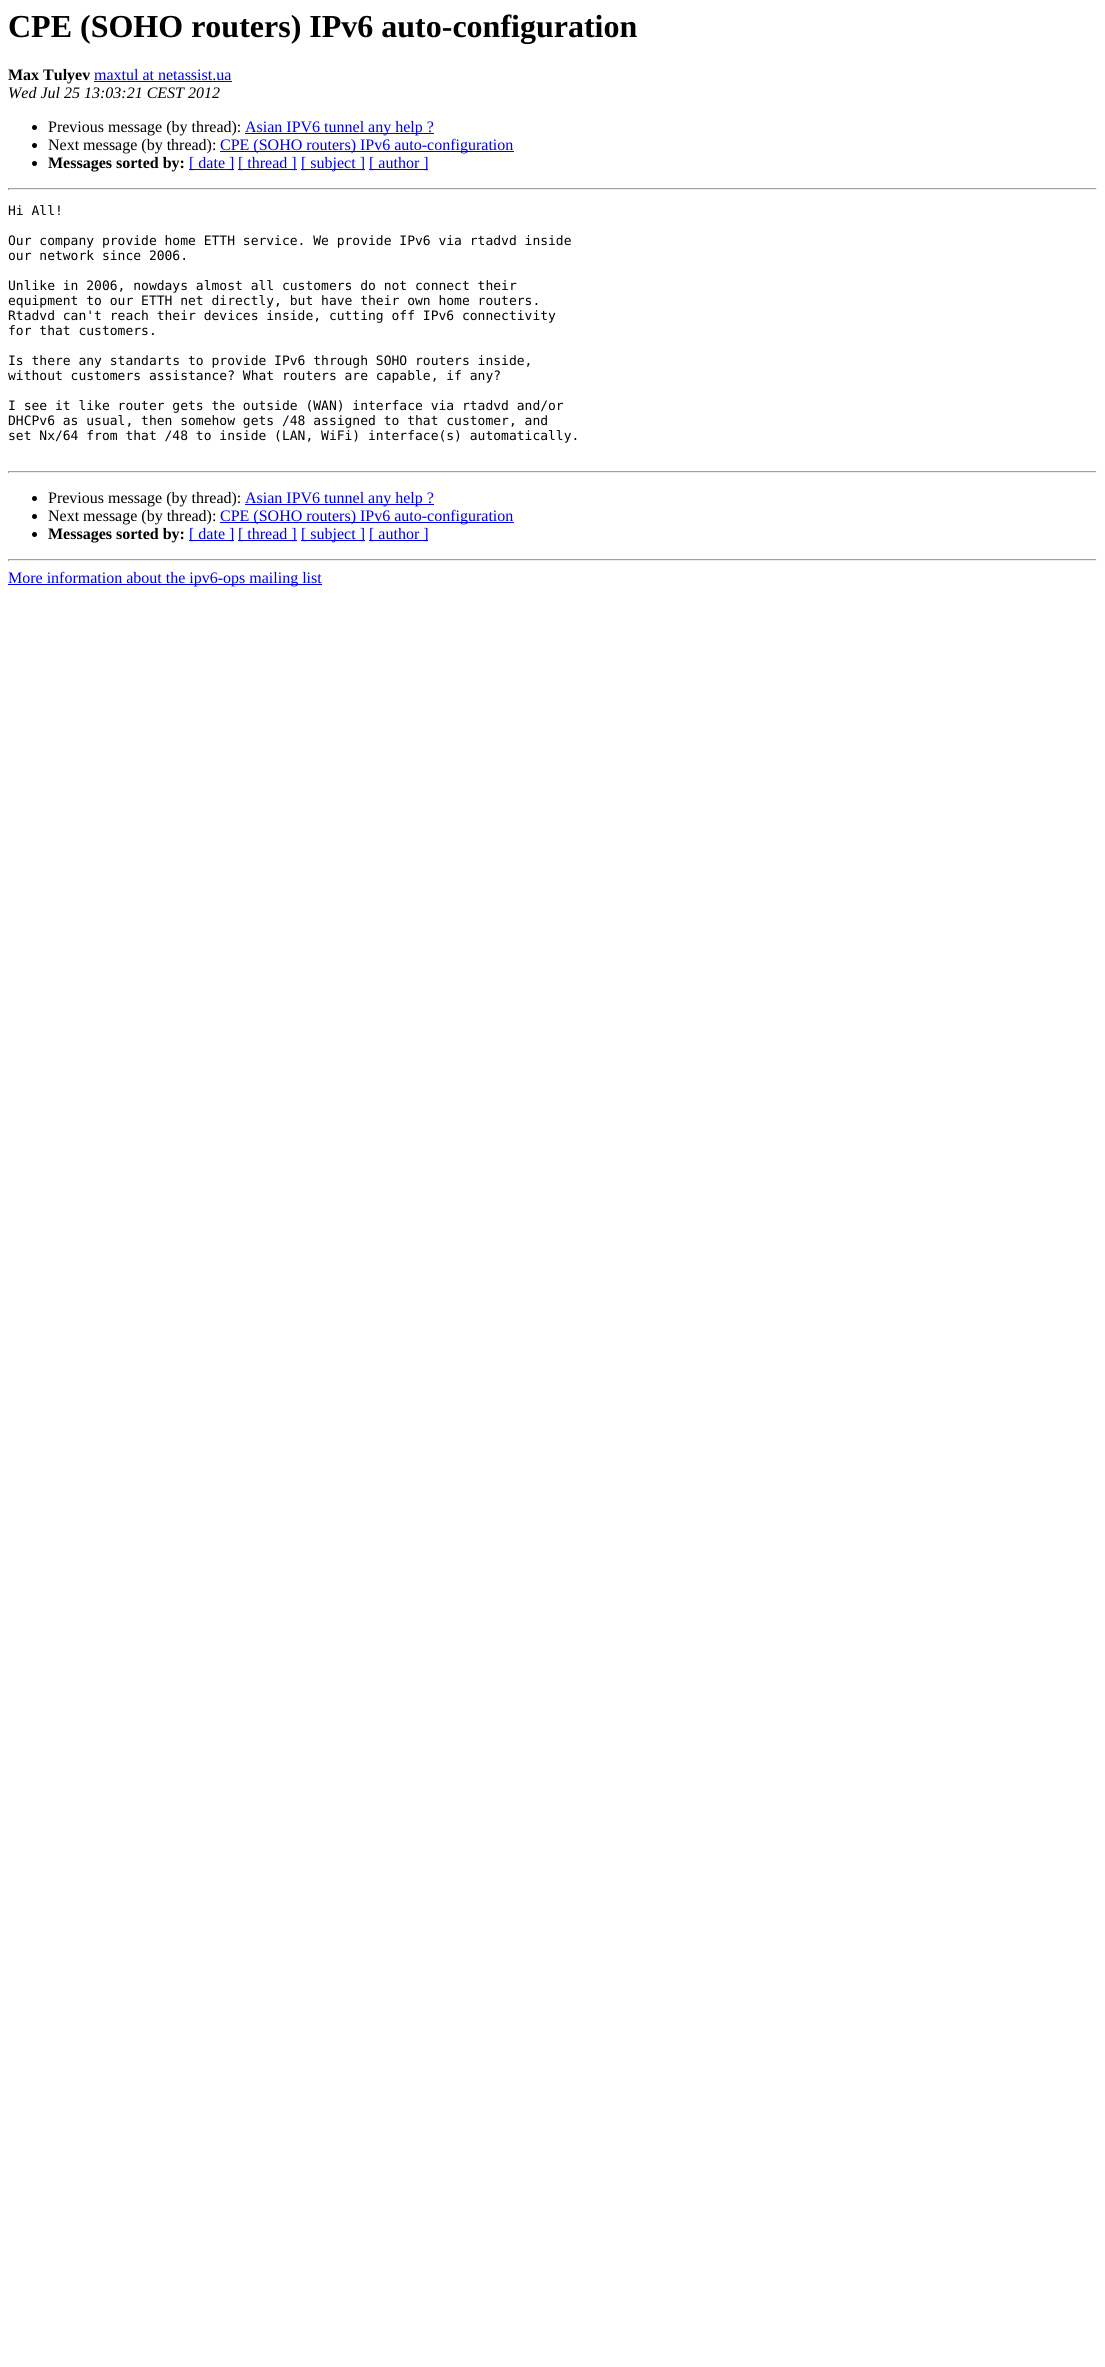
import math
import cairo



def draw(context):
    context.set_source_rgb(1, 1, 1)
    context.paint()
    context.set_source_rgb(0, 0, 238 / 255)
    context.rectangle(94, 81, 138, 1)
    context.fill()
    context.set_source_rgb(0, 0, 0)
    context.arc(34.5, 127.5, 2.5, 0, 2 * math.pi)
    context.fill()
    context.set_source_rgb(0, 0, 238 / 255)
    context.rectangle(245, 133, 189, 1)
    context.fill()
    context.set_source_rgb(0, 0, 0)
    context.arc(34.5, 145.5, 2.5, 0, 2 * math.pi)
    context.fill()
    context.set_source_rgb(0, 0, 238 / 255)
    context.rectangle(220, 151, 294, 1)
    context.fill()
    context.set_source_rgb(0, 0, 0)
    context.arc(34.5, 163.5, 2.5, 0, 2 * math.pi)
    context.fill()
    context.set_source_rgb(0, 0, 238 / 255)
    context.rectangle(189, 169, 45, 1)
    context.fill()
    context.rectangle(238, 169, 59, 1)
    context.fill()
    context.rectangle(301, 169, 64, 1)
    context.fill()
    context.rectangle(369, 169, 59, 1)
    context.fill()
    context.set_source_rgb(159 / 255, 159 / 255, 159 / 255)
    context.rectangle(8, 188, 1089, 1)
    context.fill()
    context.set_source_rgb(238 / 255, 238 / 255, 238 / 255)
    context.rectangle(1096, 188, 1, 2)
    context.fill()
    context.rectangle(8, 189, 1089, 1)
    context.fill()
    context.set_source_rgb(159 / 255, 159 / 255, 159 / 255)
    context.rectangle(8, 188, 1, 2)
    context.fill()
    context.rectangle(8, 471, 1089, 1)
    context.fill()
    context.set_source_rgb(238 / 255, 238 / 255, 238 / 255)
    context.rectangle(1096, 471, 1, 2)
    context.fill()
    context.rectangle(8, 472, 1089, 1)
    context.fill()
    context.set_source_rgb(159 / 255, 159 / 255, 159 / 255)
    context.rectangle(8, 471, 1, 2)
    context.fill()
    context.set_source_rgb(0, 0, 0)
    context.arc(34.5, 498.5, 2.5, 0, 2 * math.pi)
    context.fill()
    context.set_source_rgb(0, 0, 238 / 255)
    context.rectangle(245, 504, 189, 1)
    context.fill()
    context.set_source_rgb(0, 0, 0)
    context.arc(34.5, 516.5, 2.5, 0, 2 * math.pi)
    context.fill()
    context.set_source_rgb(0, 0, 238 / 255)
    context.rectangle(220, 522, 294, 1)
    context.fill()
    context.set_source_rgb(0, 0, 0)
    context.arc(34.5, 534.5, 2.5, 0, 2 * math.pi)
    context.fill()
    context.set_source_rgb(0, 0, 238 / 255)
    context.rectangle(189, 540, 45, 1)
    context.fill()
    context.rectangle(238, 540, 59, 1)
    context.fill()
    context.rectangle(301, 540, 64, 1)
    context.fill()
    context.rectangle(369, 540, 59, 1)
    context.fill()
    context.set_source_rgb(159 / 255, 159 / 255, 159 / 255)
    context.rectangle(8, 559, 1089, 1)
    context.fill()
    context.set_source_rgb(238 / 255, 238 / 255, 238 / 255)
    context.rectangle(1096, 559, 1, 2)
    context.fill()
    context.rectangle(8, 560, 1089, 1)
    context.fill()
    context.set_source_rgb(159 / 255, 159 / 255, 159 / 255)
    context.rectangle(8, 559, 1, 2)
    context.fill()
    context.set_source_rgb(0, 0, 238 / 255)
    context.rectangle(8, 584, 314, 1)
    context.fill()
    context.select_font_face("Liberation Serif", cairo.FontSlant.NORMAL, cairo.FontWeight.BOLD)
    context.set_font_size(32)
    context.set_source_rgb(0, 0, 0)
    context.move_to(8, 37)
    context.show_text("CPE (SOHO routers) IPv6 auto-configuration")
    context.set_font_size(16)
    context.move_to(8, 80)
    context.show_text("Max Tulyev")
    context.select_font_face("Liberation Serif")
    context.set_source_rgb(0, 0, 238 / 255)
    context.move_to(94, 80)
    context.show_text("maxtul at netassist.ua")
    context.select_font_face("Liberation Serif", cairo.FontSlant.ITALIC)
    context.set_source_rgb(0, 0, 0)
    context.move_to(8, 98)
    context.show_text("Wed Jul 25 13:03:21 CEST 2012")
    context.select_font_face("Liberation Serif")
    context.move_to(48, 132)
    context.show_text("Previous message (by thread):")
    context.set_source_rgb(0, 0, 238 / 255)
    context.move_to(245, 132)
    context.show_text("Asian IPV6 tunnel any help ?")
    context.set_source_rgb(0, 0, 0)
    context.move_to(48, 150)
    context.show_text("Next message (by thread):")
    context.set_source_rgb(0, 0, 238 / 255)
    context.move_to(220, 150)
    context.show_text("CPE (SOHO routers) IPv6 auto-configuration")
    context.select_font_face("Liberation Serif", cairo.FontSlant.NORMAL, cairo.FontWeight.BOLD)
    context.set_source_rgb(0, 0, 0)
    context.move_to(48, 168)
    context.show_text("Messages sorted by:")
    context.select_font_face("Liberation Serif")
    context.set_source_rgb(0, 0, 238 / 255)
    context.move_to(189, 168)
    context.show_text("[ date ]")
    context.move_to(238, 168)
    context.show_text("[ thread ]")
    context.move_to(301, 168)
    context.show_text("[ subject ]")
    context.move_to(369, 168)
    context.show_text("[ author ]")
    context.select_font_face("DejaVu Sans Mono")
    context.set_font_size(13)
    context.set_source_rgb(0, 0, 0)
    context.move_to(8, 215)
    context.show_text("Hi All!")
    context.move_to(8, 245)
    context.show_text("Our company provide home ETTH service. We provide IPv6 via rtadvd inside")
    context.move_to(8, 260)
    context.show_text("our network since 2006.")
    context.move_to(8, 290)
    context.show_text("Unlike in 2006, nowdays almost all customers do not connect their")
    context.move_to(8, 305)
    context.show_text("equipment to our ETTH net directly, but have their own home routers.")
    context.move_to(8, 320)
    context.show_text("Rtadvd can't reach their devices inside, cutting off IPv6 connectivity")
    context.move_to(8, 335)
    context.show_text("for that customers.")
    context.move_to(8, 365)
    context.show_text("Is there any standarts to provide IPv6 through SOHO routers inside,")
    context.move_to(8, 380)
    context.show_text("without customers assistance? What routers are capable, if any?")
    context.move_to(8, 410)
    context.show_text("I see it like router gets the outside (WAN) interface via rtadvd and/or")
    context.move_to(8, 425)
    context.show_text("DHCPv6 as usual, then somehow gets /48 assigned to that customer, and")
    context.move_to(8, 440)
    context.show_text("set Nx/64 from that /48 to inside (LAN, WiFi) interface(s) automatically.")
    context.select_font_face("Liberation Serif")
    context.set_font_size(16)
    context.move_to(48, 503)
    context.show_text("Previous message (by thread):")
    context.set_source_rgb(0, 0, 238 / 255)
    context.move_to(245, 503)
    context.show_text("Asian IPV6 tunnel any help ?")
    context.set_source_rgb(0, 0, 0)
    context.move_to(48, 521)
    context.show_text("Next message (by thread):")
    context.set_source_rgb(0, 0, 238 / 255)
    context.move_to(220, 521)
    context.show_text("CPE (SOHO routers) IPv6 auto-configuration")
    context.select_font_face("Liberation Serif", cairo.FontSlant.NORMAL, cairo.FontWeight.BOLD)
    context.set_source_rgb(0, 0, 0)
    context.move_to(48, 539)
    context.show_text("Messages sorted by:")
    context.select_font_face("Liberation Serif")
    context.set_source_rgb(0, 0, 238 / 255)
    context.move_to(189, 539)
    context.show_text("[ date ]")
    context.move_to(238, 539)
    context.show_text("[ thread ]")
    context.move_to(301, 539)
    context.show_text("[ subject ]")
    context.move_to(369, 539)
    context.show_text("[ author ]")
    context.move_to(8, 583)
    context.show_text("More information about the ipv6-ops mailing list")


surface = cairo.ImageSurface(cairo.Format.RGB24, 1105, 2367)
context = cairo.Context(surface)
options = cairo.FontOptions()
options.set_hint_metrics(cairo.HintMetrics.OFF)
options.set_hint_style(cairo.HintStyle.NONE)
context.set_font_options(options)
context.set_miter_limit(4)
draw(context)
surface.write_to_png("out.png")
